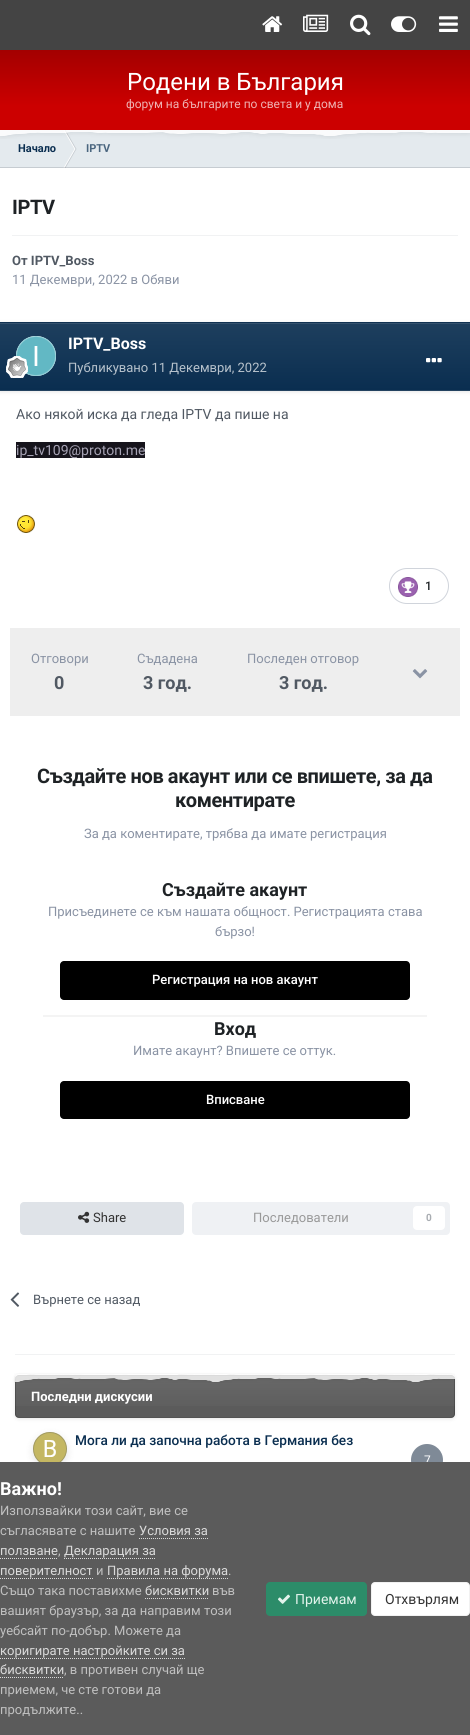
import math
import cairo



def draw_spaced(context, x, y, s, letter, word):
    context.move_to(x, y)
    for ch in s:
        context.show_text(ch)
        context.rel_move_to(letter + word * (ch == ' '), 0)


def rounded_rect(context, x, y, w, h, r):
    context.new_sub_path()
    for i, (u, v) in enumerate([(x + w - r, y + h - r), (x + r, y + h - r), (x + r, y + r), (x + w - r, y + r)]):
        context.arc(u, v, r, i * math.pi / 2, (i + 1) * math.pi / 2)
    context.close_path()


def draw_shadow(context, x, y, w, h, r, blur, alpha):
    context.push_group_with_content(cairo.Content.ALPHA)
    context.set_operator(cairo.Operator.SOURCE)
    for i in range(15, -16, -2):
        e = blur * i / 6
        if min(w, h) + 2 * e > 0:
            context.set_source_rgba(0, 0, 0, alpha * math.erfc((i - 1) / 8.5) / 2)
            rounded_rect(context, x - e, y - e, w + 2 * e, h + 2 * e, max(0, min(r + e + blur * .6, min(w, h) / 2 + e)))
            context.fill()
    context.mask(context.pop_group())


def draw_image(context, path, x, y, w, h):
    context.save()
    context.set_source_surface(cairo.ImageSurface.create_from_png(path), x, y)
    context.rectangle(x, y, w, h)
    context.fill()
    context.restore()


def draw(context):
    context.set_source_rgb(68 / 255, 68 / 255, 68 / 255)
    context.paint()
    draw_image(context, "images/1.png", 262, 16, 21, 16)
    draw_image(context, "images/2.png", 303, 14, 26, 18)
    draw_image(context, "images/3.png", 350, 14, 21, 22)
    draw_image(context, "images/4.png", 391, 16, 26, 16)
    draw_image(context, "images/5.png", 439, 16, 19, 16)
    gradient = cairo.LinearGradient(235, 50, 235, 130)
    gradient.add_color_stop_rgba(0, 163 / 255, 0, 0, 1)
    gradient.add_color_stop_rgba(0.7, 204 / 255, 0, 0, 1)
    context.set_source(gradient)
    context.rectangle(0, 50, 470, 80)
    context.fill()
    context.set_source_rgb(1, 1, 1)
    context.rectangle(0, 168, 470, 1294)
    context.fill()
    context.set_source_rgb(228 / 255, 234 / 255, 238 / 255)
    context.rectangle(0, 130, 470, 38)
    context.fill()
    context.set_source_rgb(1, 1, 1)
    context.new_path()
    context.move_to(63.5, 130)
    context.line_to(64.5, 130)
    context.line_to(75.5, 149)
    context.line_to(74.5, 149)
    context.close_path()
    context.fill()
    context.set_source_rgba(81 / 255, 89 / 255, 99 / 255, 0.2)
    context.new_path()
    context.move_to(64.5, 130)
    context.line_to(65.5, 130)
    context.line_to(76.5, 149)
    context.line_to(75.5, 149)
    context.close_path()
    context.fill()
    draw_image(context, "images/6.png", 0, 130, 470, 9)
    context.set_source_rgb(1, 1, 1)
    context.new_path()
    context.move_to(63.5, 168)
    context.line_to(64.5, 168)
    context.line_to(75.5, 149)
    context.line_to(74.5, 149)
    context.close_path()
    context.fill()
    context.set_source_rgba(81 / 255, 89 / 255, 99 / 255, 0.2)
    context.new_path()
    context.move_to(64.5, 168)
    context.line_to(65.5, 168)
    context.line_to(76.5, 149)
    context.line_to(75.5, 149)
    context.close_path()
    context.fill()
    context.rectangle(0, 167, 470, 1)
    context.fill()
    context.set_source_rgb(241 / 255, 242 / 255, 243 / 255)
    context.rectangle(12, 235, 446, 1)
    context.fill()
    context.set_source_rgb(0, 0, 0)
    draw_shadow(context, 0, 323, 470, 69, 0, 2, 0.1)
    gradient = cairo.LinearGradient(235, 323, 235, 390)
    gradient.add_color_stop_rgba(0, 30 / 255, 63 / 255, 94 / 255, 1)
    gradient.add_color_stop_rgba(1, 10 / 255, 46 / 255, 80 / 255, 1)
    context.set_source(gradient)
    context.rectangle(0, 324, 470, 66)
    context.fill()
    context.set_source_rgb(53 / 255, 82 / 255, 110 / 255)
    context.rectangle(0, 323, 470, 1)
    context.fill()
    context.set_source_rgb(17 / 255, 50 / 255, 82 / 255)
    context.rectangle(0, 322, 470, 1)
    context.fill()
    context.set_source_rgb(35 / 255, 66 / 255, 95 / 255)
    context.rectangle(0, 390, 470, 1)
    context.fill()
    context.set_source_rgb(1, 1, 1)
    context.arc(36, 356, 20, 0, 2 * math.pi)
    context.fill()
    draw_image(context, "images/7.png", 16, 336, 40, 40)
    context.arc(36, 356, 19.5, 0, 2 * math.pi)
    context.set_source_rgba(1, 1, 1, 0.3)
    context.set_line_width(1)
    context.stroke()
    draw_image(context, "images/8.png", 6, 356, 22, 22)
    draw_image(context, "images/9.png", 426, 358, 16, 5)
    context.set_source_rgb(22 / 255, 20 / 255, 28 / 255)
    context.rectangle(16, 442, 129, 16)
    context.fill()
    draw_image(context, "images/10.png", 17, 515, 18, 18)
    rounded_rect(context, 389.5, 568.5, 59, 35, 17.5)
    context.set_source_rgb(208 / 255, 212 / 255, 219 / 255)
    context.stroke()
    draw_image(context, "images/11.png", 398, 577, 20, 20)
    context.set_source_rgb(238 / 255, 238 / 255, 238 / 255)
    context.rectangle(10, 628, 450, 88)
    context.fill()
    draw_image(context, "images/12.png", 412, 669, 16, 10)
    context.set_source_rgb(244 / 255, 244 / 255, 244 / 255)
    context.rectangle(43, 1015, 384, 2)
    context.fill()
    context.set_source_rgb(0, 0, 0)
    rounded_rect(context, 60, 961, 350, 39, 4)
    context.fill()
    rounded_rect(context, 60, 1081, 350, 38, 4)
    context.fill()
    context.set_source_rgb(223 / 255, 227 / 255, 232 / 255)
    rounded_rect(context, 20, 1202, 164, 33, 4)
    context.fill()
    draw_image(context, "images/13.png", 78, 1211, 12, 12)
    context.set_source_rgb(239 / 255, 241 / 255, 244 / 255)
    rounded_rect(context, 192, 1202, 258, 33, 4)
    context.fill()
    context.set_source_rgb(1, 1, 1)
    rounded_rect(context, 413, 1206, 32, 24, 4)
    context.fill()
    draw_image(context, "images/14.png", 10, 1292, 10, 15)
    context.set_source_rgb(241 / 255, 242 / 255, 243 / 255)
    context.rectangle(15, 1354, 440, 1)
    context.fill()
    context.set_source_rgb(0, 0, 0)
    draw_shadow(context, 15, 1376, 440, 43, 4, 2, 0.1)
    context.set_source_rgb(91 / 255, 91 / 255, 91 / 255)
    rounded_rect(context, 15, 1375, 440, 43, 4)
    context.fill()
    gradient = cairo.LinearGradient(235, 1376, 235, 1417)
    gradient.add_color_stop_rgba(0, 1, 1, 1, 0.08)
    gradient.add_color_stop_rgba(1, 1, 1, 1, 0)
    context.set_source(gradient)
    context.rectangle(15, 1376, 440, 30)
    context.fill()
    context.save()
    rounded_rect(context, 15, 1375, 440, 43, 4)
    context.clip()
    gradient = cairo.LinearGradient(235, 1417, 235, 1458)
    gradient.add_color_stop_rgba(0, 1, 1, 1, 0.08)
    gradient.add_color_stop_rgba(1, 1, 1, 1, 0)
    context.set_source(gradient)
    context.rectangle(15, 1417, 440, 1)
    context.fill()
    context.restore()
    rounded_rect(context, 15.5, 1375.5, 439, 42, 3.5)
    context.set_source_rgba(0, 0, 0, 0.2)
    context.stroke()
    draw_image(context, "images/15.png", 14, 1373, 441, 10)
    draw_image(context, "images/16.png", 33, 1432, 34, 30)
    context.save()
    context.set_fill_rule(cairo.FillRule.EVEN_ODD)
    context.new_path()
    context.move_to(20, 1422)
    context.line_to(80, 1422)
    context.line_to(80, 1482)
    context.line_to(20, 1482)
    context.close_path()
    context.move_to(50, 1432)
    context.curve_to(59.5, 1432, 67, 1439.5, 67, 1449)
    context.curve_to(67, 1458.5, 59.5, 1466, 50, 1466)
    context.curve_to(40.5, 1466, 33, 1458.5, 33, 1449)
    context.curve_to(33, 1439.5, 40.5, 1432, 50, 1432)
    context.close_path()
    context.clip()
    context.set_source_rgb(0, 0, 0)
    draw_shadow(context, 33, 1435, 34, 34, 17, 4, 0.1)
    context.restore()
    context.arc(50, 1449, 16.5, 0, 2 * math.pi)
    context.set_source_rgba(81 / 255, 89 / 255, 99 / 255, 0.3)
    context.stroke()
    context.set_source_rgb(127 / 255, 138 / 255, 151 / 255)
    context.arc(427, 1460, 16, 0, 2 * math.pi)
    context.fill()
    context.select_font_face("Roboto")
    context.set_font_size(24)
    context.set_source_rgb(1, 1, 1)
    context.move_to(127, 90)
    context.show_text("Родени в България")
    context.set_font_size(12)
    context.set_source_rgb(239 / 255, 179 / 255, 179 / 255)
    context.move_to(126, 108)
    context.show_text("форум на българите по света и у дома")
    context.select_font_face("Roboto", cairo.FontSlant.NORMAL, cairo.FontWeight.BOLD)
    context.set_font_size(11)
    context.set_source_rgb(10 / 255, 46 / 255, 80 / 255)
    context.move_to(18, 152)
    context.show_text("Начало")
    context.set_source_rgb(75 / 255, 102 / 255, 127 / 255)
    context.move_to(86, 152)
    context.show_text("IPTV")
    context.set_font_size(20)
    context.set_source_rgb(30 / 255, 34 / 255, 37 / 255)
    draw_spaced(context, 12, 214, "IPTV", -0.4, 0)
    context.set_font_size(13)
    context.set_source_rgb(81 / 255, 89 / 255, 99 / 255)
    context.move_to(12, 265)
    context.show_text("От IPTV_Boss")
    context.select_font_face("Roboto")
    context.set_source_rgb(138 / 255, 147 / 255, 164 / 255)
    context.move_to(12, 284)
    context.show_text("11 Декември, 2022 в Обяви")
    context.select_font_face("Roboto", cairo.FontSlant.NORMAL, cairo.FontWeight.BOLD)
    context.set_font_size(16)
    context.set_source_rgb(1, 1, 1)
    context.move_to(68, 349)
    context.show_text("IPTV_Boss")
    context.select_font_face("Roboto")
    context.set_font_size(13)
    context.set_source_rgb(183 / 255, 194 / 255, 204 / 255)
    context.move_to(68, 372)
    context.show_text("Публикувано 11 Декември, 2022")
    context.set_font_size(14)
    context.set_source_rgb(81 / 255, 89 / 255, 99 / 255)
    context.move_to(16, 419)
    context.show_text("Ако някой иска да гледа IPTV да пише на")
    context.set_source_rgb(167 / 255, 164 / 255, 181 / 255)
    context.move_to(16, 455)
    context.show_text("ip_tv109@proton.me")
    context.select_font_face("Roboto Medium")
    context.set_font_size(12)
    context.set_source_rgb(30 / 255, 34 / 255, 37 / 255)
    context.move_to(425, 590)
    context.show_text("1")
    context.select_font_face("Roboto")
    context.set_font_size(13)
    context.set_source_rgb(138 / 255, 147 / 255, 164 / 255)
    context.move_to(31, 663)
    context.show_text("Отговори")
    context.select_font_face("Roboto", cairo.FontSlant.NORMAL, cairo.FontWeight.BOLD)
    context.set_font_size(18)
    context.set_source_rgb(81 / 255, 89 / 255, 99 / 255)
    context.move_to(54, 689)
    context.show_text("0")
    context.select_font_face("Roboto")
    context.set_font_size(13)
    context.set_source_rgb(138 / 255, 147 / 255, 164 / 255)
    context.move_to(137, 663)
    context.show_text("Съдадена")
    context.select_font_face("Roboto", cairo.FontSlant.NORMAL, cairo.FontWeight.BOLD)
    context.set_font_size(18)
    context.set_source_rgb(81 / 255, 89 / 255, 99 / 255)
    context.move_to(143, 689)
    context.show_text("3 год.")
    context.select_font_face("Roboto")
    context.set_font_size(13)
    context.set_source_rgb(138 / 255, 147 / 255, 164 / 255)
    context.move_to(247, 663)
    context.show_text("Последен отговор")
    context.select_font_face("Roboto", cairo.FontSlant.NORMAL, cairo.FontWeight.BOLD)
    context.set_font_size(18)
    context.set_source_rgb(81 / 255, 89 / 255, 99 / 255)
    context.move_to(279, 689)
    context.show_text("3 год.")
    context.set_font_size(20)
    context.set_source_rgb(30 / 255, 34 / 255, 37 / 255)
    draw_spaced(context, 37, 783, "Създайте нов акаунт или се впишете, за да", -0.4, 0)
    draw_spaced(context, 175, 807, "коментирате", -0.4, 0)
    context.select_font_face("Roboto")
    context.set_font_size(13)
    context.set_source_rgb(138 / 255, 147 / 255, 164 / 255)
    context.move_to(84, 838)
    context.show_text("За да коментирате, трябва да имате регистрация")
    context.select_font_face("Roboto", cairo.FontSlant.NORMAL, cairo.FontWeight.BOLD)
    context.set_font_size(18)
    context.set_source_rgb(30 / 255, 34 / 255, 37 / 255)
    context.move_to(162, 896)
    context.show_text("Създайте акаунт")
    context.select_font_face("Roboto")
    context.set_font_size(13)
    context.set_source_rgb(138 / 255, 147 / 255, 164 / 255)
    context.move_to(48, 916)
    context.show_text("Присъединете се към нашата общност. Регистрацията става")
    context.move_to(215, 936)
    context.show_text("бързо!")
    context.select_font_face("Roboto Medium")
    context.set_source_rgb(1, 1, 1)
    context.move_to(152, 984)
    context.show_text("Регистрация на нов акаунт")
    context.select_font_face("Roboto", cairo.FontSlant.NORMAL, cairo.FontWeight.BOLD)
    context.set_font_size(18)
    context.set_source_rgb(30 / 255, 34 / 255, 37 / 255)
    context.move_to(214, 1035)
    context.show_text("Вход")
    context.select_font_face("Roboto")
    context.set_font_size(13)
    context.set_source_rgb(138 / 255, 147 / 255, 164 / 255)
    context.move_to(133, 1055)
    context.show_text("Имате акаунт? Впишете се оттук.")
    context.select_font_face("Roboto Medium")
    context.set_source_rgb(1, 1, 1)
    context.move_to(206, 1104)
    context.show_text("Вписване")
    context.select_font_face("Roboto")
    context.set_source_rgb(51 / 255, 51 / 255, 51 / 255)
    context.move_to(93, 1222)
    context.show_text("Share")
    context.set_source_rgb(153 / 255, 153 / 255, 153 / 255)
    context.move_to(253, 1222)
    context.show_text("Последователи")
    context.select_font_face("Roboto", cairo.FontSlant.NORMAL, cairo.FontWeight.BOLD)
    context.set_font_size(10)
    context.set_source_rgb(168 / 255, 172 / 255, 177 / 255)
    context.move_to(426, 1221)
    context.show_text("0")
    context.select_font_face("Roboto")
    context.set_font_size(13)
    context.set_source_rgb(81 / 255, 89 / 255, 99 / 255)
    context.move_to(33, 1304)
    context.show_text("Върнете се назад")
    context.select_font_face("Roboto", cairo.FontSlant.NORMAL, cairo.FontWeight.BOLD)
    context.set_source_rgb(1, 1, 1)
    context.move_to(31, 1401)
    context.show_text("Последни дискусии")
    context.select_font_face("Roboto Medium")
    context.set_font_size(13.65)
    context.set_source_rgb(10 / 255, 46 / 255, 80 / 255)
    context.move_to(75, 1445)
    context.show_text("Мога ли да започна работа в Германия без")
    context.select_font_face("Roboto")
    context.set_font_size(12)
    context.set_source_rgb(1, 1, 1)
    context.move_to(424, 1464)
    context.show_text("7")
    context.set_source_rgb(91 / 255, 91 / 255, 91 / 255)
    context.rectangle(0, 1462, 470, 273)
    context.fill()
    context.select_font_face("Roboto", cairo.FontSlant.NORMAL, cairo.FontWeight.BOLD)
    context.set_font_size(18)
    context.set_source_rgb(1, 1, 1)
    context.move_to(0, 1495)
    context.show_text("Важно!")
    context.select_font_face("Roboto")
    context.set_font_size(13)
    context.set_source_rgb(192 / 255, 192 / 255, 192 / 255)
    context.move_to(0, 1515)
    context.show_text("Използвайки този сайт, вие се")
    context.move_to(0, 1535)
    context.show_text("съгласявате с нашите")
    context.set_source_rgb(218 / 255, 218 / 255, 218 / 255)
    context.move_to(139, 1535)
    context.show_text("Условия за")
    context.new_path()
    context.move_to(139, 1538.5)
    context.line_to(208, 1538.5)
    context.set_dash([1, 1])
    context.stroke()
    context.move_to(0, 1555)
    context.show_text("ползване")
    context.new_path()
    context.move_to(0, 1558.5)
    context.line_to(58, 1558.5)
    context.stroke()
    context.set_source_rgb(192 / 255, 192 / 255, 192 / 255)
    context.move_to(58, 1555)
    context.show_text(",")
    context.set_source_rgb(218 / 255, 218 / 255, 218 / 255)
    context.move_to(64, 1555)
    context.show_text("Декларация за")
    context.new_path()
    context.move_to(64, 1558.5)
    context.line_to(156, 1558.5)
    context.stroke()
    context.move_to(0, 1575)
    context.show_text("поверителност")
    context.new_path()
    context.move_to(0, 1578.5)
    context.line_to(93, 1578.5)
    context.stroke()
    context.set_source_rgb(192 / 255, 192 / 255, 192 / 255)
    context.move_to(96, 1575)
    context.show_text("и")
    context.set_source_rgb(218 / 255, 218 / 255, 218 / 255)
    context.move_to(107, 1575)
    context.show_text("Правила на форума")
    context.new_path()
    context.move_to(107, 1578.5)
    context.line_to(228, 1578.5)
    context.stroke()
    context.set_source_rgb(192 / 255, 192 / 255, 192 / 255)
    context.move_to(228, 1575)
    context.show_text(".")
    context.move_to(0, 1595)
    context.show_text("Също така поставихме")
    context.set_source_rgb(218 / 255, 218 / 255, 218 / 255)
    context.move_to(145, 1595)
    context.show_text("бисквитки")
    context.new_path()
    context.move_to(145, 1598.5)
    context.line_to(209, 1598.5)
    context.stroke()
    context.set_source_rgb(192 / 255, 192 / 255, 192 / 255)
    context.move_to(212, 1595)
    context.show_text("във")
    context.move_to(0, 1615)
    context.show_text("вашият браузър, за да направим този")
    context.move_to(0, 1635)
    context.show_text("уебсайт по-добър. Можете да")
    context.set_source_rgb(218 / 255, 218 / 255, 218 / 255)
    context.move_to(0, 1655)
    context.show_text("коригирате настройките си за")
    context.new_path()
    context.move_to(0, 1658.5)
    context.line_to(185, 1658.5)
    context.stroke()
    context.move_to(0, 1674)
    context.show_text("бисквитки")
    context.new_path()
    context.move_to(0, 1677.5)
    context.line_to(64, 1677.5)
    context.stroke()
    context.set_source_rgb(192 / 255, 192 / 255, 192 / 255)
    context.move_to(64, 1674)
    context.show_text(", в противен случай ще")
    context.move_to(0, 1694)
    context.show_text("приемем, че сте готови да")
    context.move_to(0, 1714)
    context.show_text("продължите..")
    context.set_source_rgb(44 / 255, 140 / 255, 105 / 255)
    rounded_rect(context, 266, 1582, 101, 34, 4)
    context.fill()
    draw_image(context, "images/17.png", 278, 1594, 12, 10)
    context.set_font_size(14)
    context.set_source_rgb(227 / 255, 243 / 255, 236 / 255)
    context.move_to(295, 1604)
    context.show_text("Приемам")
    context.set_source_rgb(1, 1, 1)
    rounded_rect(context, 371, 1582, 99, 34, 4)
    context.fill()
    rounded_rect(context, 371.5, 1582.5, 98, 33, 3.5)
    context.set_source_rgba(51 / 255, 51 / 255, 51 / 255, 0.07)
    context.set_dash([])
    context.stroke()
    context.set_source_rgb(51 / 255, 51 / 255, 51 / 255)
    context.move_to(385, 1604)
    context.show_text("Отхвърлям")


surface = cairo.ImageSurface(cairo.Format.RGB24, 470, 1735)
context = cairo.Context(surface)
options = cairo.FontOptions()
options.set_hint_metrics(cairo.HintMetrics.OFF)
options.set_hint_style(cairo.HintStyle.NONE)
context.set_font_options(options)
context.set_miter_limit(4)
draw(context)
surface.write_to_png("out.png")
